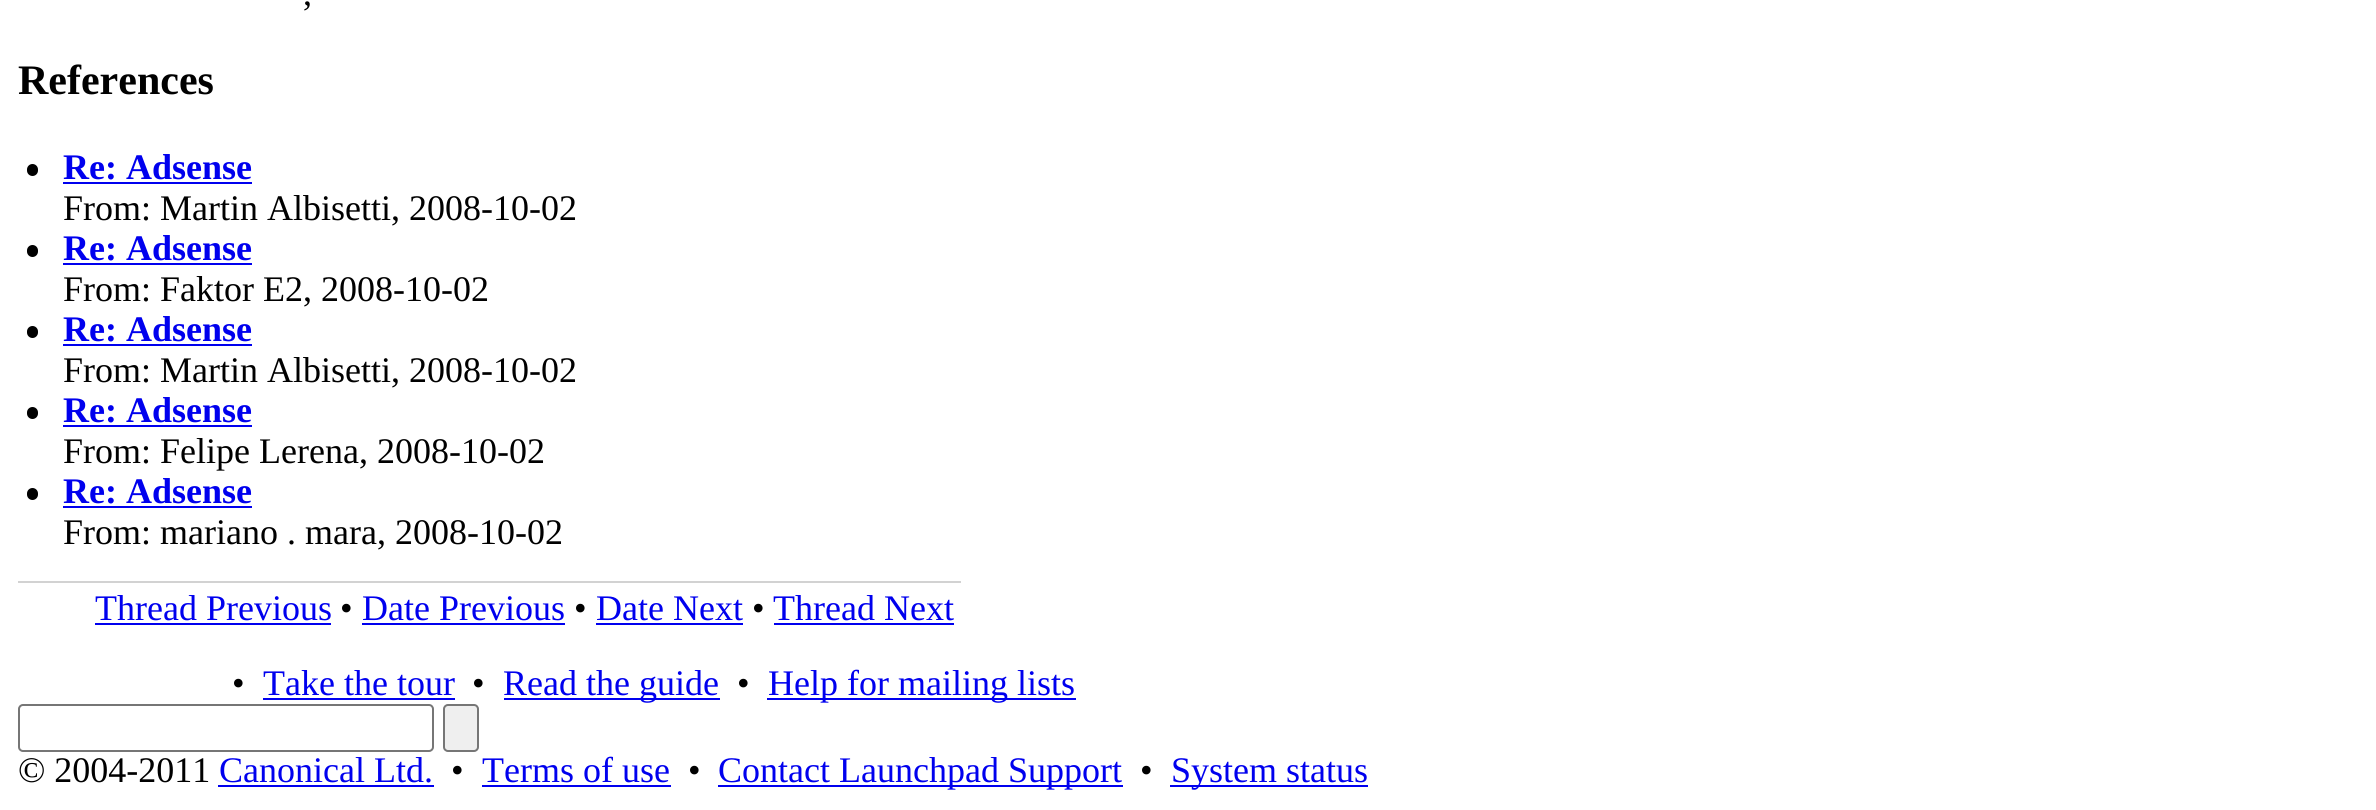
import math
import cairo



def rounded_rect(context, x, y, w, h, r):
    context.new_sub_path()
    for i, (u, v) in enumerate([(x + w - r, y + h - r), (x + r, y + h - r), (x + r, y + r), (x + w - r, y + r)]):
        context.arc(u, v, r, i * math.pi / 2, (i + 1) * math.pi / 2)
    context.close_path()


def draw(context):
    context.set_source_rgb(1, 1, 1)
    context.paint()
    context.set_source_rgb(0, 0, 0)
    rounded_rect(context, 27, 164, 11, 12, 5.5)
    context.fill()
    context.set_source_rgb(0, 0, 238 / 255)
    context.rectangle(63, 182, 189, 2)
    context.fill()
    context.set_source_rgb(0, 0, 0)
    rounded_rect(context, 27, 245, 11, 12, 5.5)
    context.fill()
    context.set_source_rgb(0, 0, 238 / 255)
    context.rectangle(63, 263, 189, 2)
    context.fill()
    context.set_source_rgb(0, 0, 0)
    rounded_rect(context, 27, 326, 11, 12, 5.5)
    context.fill()
    context.set_source_rgb(0, 0, 238 / 255)
    context.rectangle(63, 344, 189, 2)
    context.fill()
    context.set_source_rgb(0, 0, 0)
    rounded_rect(context, 27, 407, 11, 12, 5.5)
    context.fill()
    context.set_source_rgb(0, 0, 238 / 255)
    context.rectangle(63, 425, 189, 2)
    context.fill()
    context.set_source_rgb(0, 0, 0)
    rounded_rect(context, 27, 488, 11, 12, 5.5)
    context.fill()
    context.set_source_rgb(0, 0, 238 / 255)
    context.rectangle(63, 506, 189, 2)
    context.fill()
    context.set_source_rgb(210 / 255, 210 / 255, 210 / 255)
    context.rectangle(18, 581, 943, 2)
    context.fill()
    context.set_source_rgb(0, 0, 238 / 255)
    context.rectangle(95, 623, 236, 2)
    context.fill()
    context.rectangle(362, 623, 203, 2)
    context.fill()
    context.rectangle(596, 623, 147, 2)
    context.fill()
    context.rectangle(774, 623, 180, 2)
    context.fill()
    context.rectangle(263, 698, 192, 2)
    context.fill()
    context.rectangle(504, 698, 216, 2)
    context.fill()
    context.rectangle(767, 698, 309, 2)
    context.fill()
    rounded_rect(context, 19, 705, 414, 46, 4)
    context.set_source_rgb(118 / 255, 118 / 255, 118 / 255)
    context.stroke()
    context.set_source_rgb(239 / 255, 239 / 255, 239 / 255)
    rounded_rect(context, 444, 705, 34, 46, 4)
    context.fill_preserve()
    context.set_source_rgb(118 / 255, 118 / 255, 118 / 255)
    context.stroke()
    context.set_source_rgb(0, 0, 238 / 255)
    context.rectangle(218, 785, 216, 2)
    context.fill()
    context.rectangle(482, 785, 189, 2)
    context.fill()
    context.rectangle(718, 785, 405, 2)
    context.fill()
    context.rectangle(1170, 785, 198, 2)
    context.fill()
    context.select_font_face("Liberation Serif")
    context.set_font_size(36)
    context.set_source_rgb(0, 0, 0)
    context.move_to(303, 5)
    context.show_text(",")
    context.select_font_face("Liberation Serif", cairo.FontSlant.NORMAL, cairo.FontWeight.BOLD)
    context.set_font_size(42)
    context.move_to(18, 94)
    context.show_text("References")
    context.set_font_size(36)
    context.set_source_rgb(0, 0, 238 / 255)
    context.move_to(63, 179)
    context.show_text("Re: Adsense")
    context.select_font_face("Liberation Serif")
    context.set_source_rgb(0, 0, 0)
    context.move_to(63, 220)
    context.show_text("From: Martin Albisetti, 2008-10-02")
    context.select_font_face("Liberation Serif", cairo.FontSlant.NORMAL, cairo.FontWeight.BOLD)
    context.set_source_rgb(0, 0, 238 / 255)
    context.move_to(63, 260)
    context.show_text("Re: Adsense")
    context.select_font_face("Liberation Serif")
    context.set_source_rgb(0, 0, 0)
    context.move_to(63, 301)
    context.show_text("From: Faktor E2, 2008-10-02")
    context.select_font_face("Liberation Serif", cairo.FontSlant.NORMAL, cairo.FontWeight.BOLD)
    context.set_source_rgb(0, 0, 238 / 255)
    context.move_to(63, 341)
    context.show_text("Re: Adsense")
    context.select_font_face("Liberation Serif")
    context.set_source_rgb(0, 0, 0)
    context.move_to(63, 382)
    context.show_text("From: Martin Albisetti, 2008-10-02")
    context.select_font_face("Liberation Serif", cairo.FontSlant.NORMAL, cairo.FontWeight.BOLD)
    context.set_source_rgb(0, 0, 238 / 255)
    context.move_to(63, 422)
    context.show_text("Re: Adsense")
    context.select_font_face("Liberation Serif")
    context.set_source_rgb(0, 0, 0)
    context.move_to(63, 463)
    context.show_text("From: Felipe Lerena, 2008-10-02")
    context.select_font_face("Liberation Serif", cairo.FontSlant.NORMAL, cairo.FontWeight.BOLD)
    context.set_source_rgb(0, 0, 238 / 255)
    context.move_to(63, 503)
    context.show_text("Re: Adsense")
    context.select_font_face("Liberation Serif")
    context.set_source_rgb(0, 0, 0)
    context.move_to(63, 544)
    context.show_text("From: mariano . mara, 2008-10-02")
    context.set_source_rgb(0, 0, 238 / 255)
    context.move_to(95, 620)
    context.show_text("Thread Previous")
    context.set_source_rgb(0, 0, 0)
    context.move_to(340, 620)
    context.show_text("•")
    context.set_source_rgb(0, 0, 238 / 255)
    context.move_to(362, 620)
    context.show_text("Date Previous")
    context.set_source_rgb(0, 0, 0)
    context.move_to(574, 620)
    context.show_text("•")
    context.set_source_rgb(0, 0, 238 / 255)
    context.move_to(596, 620)
    context.show_text("Date Next")
    context.set_source_rgb(0, 0, 0)
    context.move_to(752, 620)
    context.show_text("•")
    context.set_source_rgb(0, 0, 238 / 255)
    context.move_to(773, 620)
    context.show_text("Thread Next")
    context.set_source_rgb(0, 0, 0)
    context.move_to(232, 695)
    context.show_text("•")
    context.set_source_rgb(0, 0, 238 / 255)
    context.move_to(263, 695)
    context.show_text("Take the tour")
    context.set_source_rgb(0, 0, 0)
    context.move_to(472, 695)
    context.show_text("•")
    context.set_source_rgb(0, 0, 238 / 255)
    context.move_to(503, 695)
    context.show_text("Read the guide")
    context.set_source_rgb(0, 0, 0)
    context.move_to(737, 695)
    context.show_text("•")
    context.set_source_rgb(0, 0, 238 / 255)
    context.move_to(768, 695)
    context.show_text("Help for mailing lists")
    context.set_source_rgb(0, 0, 0)
    context.move_to(18, 782)
    context.show_text("© 2004-2011")
    context.set_source_rgb(0, 0, 238 / 255)
    context.move_to(219, 782)
    context.show_text("Canonical Ltd.")
    context.set_source_rgb(0, 0, 0)
    context.move_to(451, 782)
    context.show_text("•")
    context.set_source_rgb(0, 0, 238 / 255)
    context.move_to(482, 782)
    context.show_text("Terms of use")
    context.set_source_rgb(0, 0, 0)
    context.move_to(688, 782)
    context.show_text("•")
    context.set_source_rgb(0, 0, 238 / 255)
    context.move_to(718, 782)
    context.show_text("Contact Launchpad Support")
    context.set_source_rgb(0, 0, 0)
    context.move_to(1140, 782)
    context.show_text("•")
    context.set_source_rgb(0, 0, 238 / 255)
    context.move_to(1171, 782)
    context.show_text("System status")


surface = cairo.ImageSurface(cairo.Format.RGB24, 2376, 810)
context = cairo.Context(surface)
options = cairo.FontOptions()
options.set_hint_metrics(cairo.HintMetrics.OFF)
options.set_hint_style(cairo.HintStyle.NONE)
context.set_font_options(options)
context.set_miter_limit(4)
draw(context)
surface.write_to_png("out.png")
